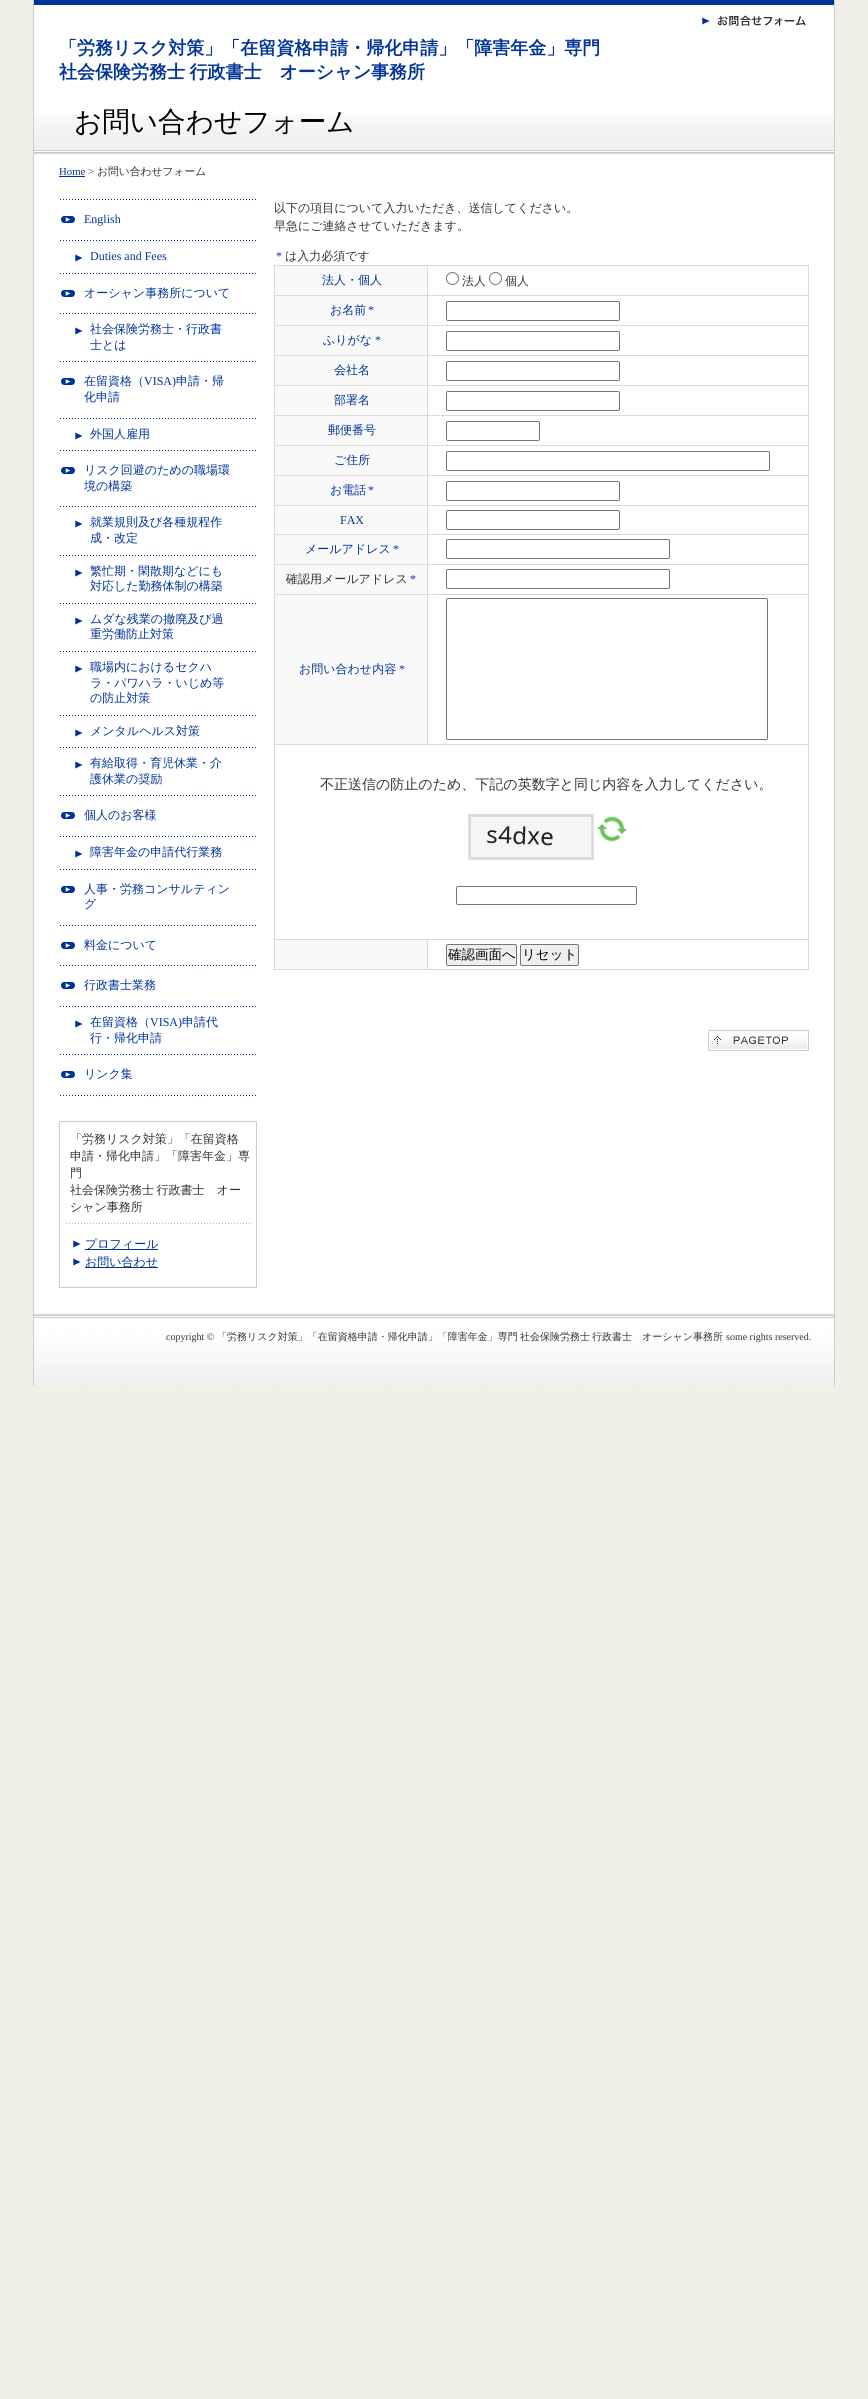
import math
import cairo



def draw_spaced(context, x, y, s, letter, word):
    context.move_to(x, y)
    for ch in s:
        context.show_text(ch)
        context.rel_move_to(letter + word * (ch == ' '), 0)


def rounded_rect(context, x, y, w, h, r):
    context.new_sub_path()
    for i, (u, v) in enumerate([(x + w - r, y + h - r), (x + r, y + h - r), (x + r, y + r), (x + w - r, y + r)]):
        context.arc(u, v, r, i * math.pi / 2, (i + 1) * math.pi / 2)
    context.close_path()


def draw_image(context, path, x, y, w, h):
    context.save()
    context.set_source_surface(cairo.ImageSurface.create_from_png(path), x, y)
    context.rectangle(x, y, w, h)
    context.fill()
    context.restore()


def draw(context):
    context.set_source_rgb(240 / 255, 239 / 255, 232 / 255)
    context.paint()
    context.set_source_rgb(1, 1, 1)
    context.rectangle(34, 5, 800, 1308)
    context.fill()
    context.set_source_rgb(204 / 255, 204 / 255, 204 / 255)
    context.rectangle(834, 0, 1, 1386)
    context.fill()
    context.rectangle(33, 0, 1, 1386)
    context.fill()
    draw_image(context, "images/1.png", 34, 114, 800, 41)
    context.set_source_rgb(0, 51 / 255, 153 / 255)
    context.rectangle(34, 0, 800, 5)
    context.fill()
    draw_image(context, "images/2.png", 702, 13, 104, 16)
    context.rectangle(59, 176, 26, 1)
    context.fill()
    draw_image(context, "images/3.png", 60, 1095, 196, 1)
    draw_image(context, "images/3.png", 60, 199, 196, 1)
    draw_image(context, "images/4.png", 61, 216, 14, 7)
    draw_image(context, "images/3.png", 60, 240, 196, 1)
    draw_image(context, "images/5.png", 75, 254, 8, 8)
    draw_image(context, "images/3.png", 60, 273, 196, 1)
    draw_image(context, "images/4.png", 61, 290, 14, 7)
    draw_image(context, "images/3.png", 60, 313, 196, 1)
    draw_image(context, "images/5.png", 75, 327, 8, 8)
    draw_image(context, "images/3.png", 60, 361, 196, 1)
    draw_image(context, "images/4.png", 61, 378, 14, 7)
    draw_image(context, "images/3.png", 60, 418, 196, 1)
    draw_image(context, "images/5.png", 75, 432, 8, 8)
    draw_image(context, "images/3.png", 60, 450, 196, 1)
    draw_image(context, "images/4.png", 61, 467, 14, 7)
    draw_image(context, "images/3.png", 60, 506, 196, 1)
    draw_image(context, "images/5.png", 75, 520, 8, 8)
    draw_image(context, "images/3.png", 60, 555, 196, 1)
    draw_image(context, "images/5.png", 75, 569, 8, 8)
    draw_image(context, "images/3.png", 60, 603, 196, 1)
    draw_image(context, "images/5.png", 75, 617, 8, 8)
    draw_image(context, "images/3.png", 60, 651, 196, 1)
    draw_image(context, "images/5.png", 75, 665, 8, 8)
    draw_image(context, "images/3.png", 60, 715, 196, 1)
    draw_image(context, "images/5.png", 75, 729, 8, 8)
    draw_image(context, "images/3.png", 60, 747, 196, 1)
    draw_image(context, "images/5.png", 75, 761, 8, 8)
    draw_image(context, "images/3.png", 60, 795, 196, 1)
    draw_image(context, "images/4.png", 61, 812, 14, 7)
    draw_image(context, "images/3.png", 60, 836, 196, 1)
    draw_image(context, "images/5.png", 75, 850, 8, 8)
    draw_image(context, "images/3.png", 60, 869, 196, 1)
    draw_image(context, "images/4.png", 61, 886, 14, 7)
    draw_image(context, "images/3.png", 60, 925, 196, 1)
    draw_image(context, "images/4.png", 61, 942, 14, 7)
    draw_image(context, "images/3.png", 60, 965, 196, 1)
    draw_image(context, "images/4.png", 61, 982, 14, 7)
    draw_image(context, "images/3.png", 60, 1006, 196, 1)
    draw_image(context, "images/5.png", 75, 1020, 8, 8)
    draw_image(context, "images/3.png", 60, 1054, 196, 1)
    draw_image(context, "images/4.png", 61, 1071, 14, 7)
    context.rectangle(59.5, 1121.5, 197, 166)
    context.set_source_rgb(204 / 255, 204 / 255, 204 / 255)
    context.set_line_width(1)
    context.stroke()
    draw_image(context, "images/6.png", 66, 1223, 184, 1)
    draw_image(context, "images/5.png", 73, 1240, 8, 8)
    context.set_source_rgb(0, 51 / 255, 153 / 255)
    context.rectangle(85, 1249, 73, 1)
    context.fill()
    draw_image(context, "images/5.png", 73, 1258, 8, 8)
    context.rectangle(85, 1267, 73, 1)
    context.fill()
    context.set_source_rgb(218 / 255, 218 / 255, 218 / 255)
    context.rectangle(808, 265, 1, 705)
    context.fill()
    context.rectangle(274, 969, 535, 1)
    context.fill()
    context.set_source_rgb(249 / 255, 249 / 255, 249 / 255)
    context.rectangle(275, 266, 152, 29)
    context.fill()
    context.set_source_rgb(218 / 255, 218 / 255, 218 / 255)
    context.rectangle(427, 265, 382, 1)
    context.fill()
    context.rectangle(427, 295, 382, 1)
    context.fill()
    context.rectangle(427, 325, 382, 1)
    context.fill()
    context.rectangle(427, 355, 382, 1)
    context.fill()
    context.rectangle(427, 385, 382, 1)
    context.fill()
    context.rectangle(427, 415, 382, 1)
    context.fill()
    context.rectangle(427, 445, 382, 1)
    context.fill()
    context.rectangle(427, 475, 382, 1)
    context.fill()
    context.rectangle(427, 505, 382, 1)
    context.fill()
    context.rectangle(427, 534, 382, 1)
    context.fill()
    context.rectangle(427, 564, 382, 1)
    context.fill()
    context.rectangle(427, 594, 382, 1)
    context.fill()
    context.rectangle(274, 744, 535, 1)
    context.fill()
    context.rectangle(427, 594, 1, 151)
    context.fill()
    context.rectangle(274, 594, 154, 1)
    context.fill()
    context.rectangle(427, 564, 1, 31)
    context.fill()
    context.rectangle(274, 564, 154, 1)
    context.fill()
    context.rectangle(427, 534, 1, 31)
    context.fill()
    context.rectangle(274, 534, 154, 1)
    context.fill()
    context.rectangle(427, 505, 1, 30)
    context.fill()
    context.rectangle(274, 505, 154, 1)
    context.fill()
    context.rectangle(427, 475, 1, 31)
    context.fill()
    context.rectangle(274, 475, 154, 1)
    context.fill()
    context.rectangle(427, 445, 1, 31)
    context.fill()
    context.rectangle(274, 445, 154, 1)
    context.fill()
    context.rectangle(427, 415, 1, 31)
    context.fill()
    context.rectangle(274, 415, 154, 1)
    context.fill()
    context.rectangle(427, 385, 1, 31)
    context.fill()
    context.rectangle(274, 385, 154, 1)
    context.fill()
    context.rectangle(427, 355, 1, 31)
    context.fill()
    context.rectangle(274, 355, 154, 1)
    context.fill()
    context.rectangle(427, 325, 1, 31)
    context.fill()
    context.rectangle(274, 325, 154, 1)
    context.fill()
    context.rectangle(427, 295, 1, 31)
    context.fill()
    context.rectangle(274, 295, 154, 1)
    context.fill()
    context.rectangle(427, 265, 1, 31)
    context.fill()
    context.rectangle(274, 265, 154, 1)
    context.fill()
    context.rectangle(427, 939, 382, 1)
    context.fill()
    context.rectangle(427, 939, 1, 31)
    context.fill()
    context.rectangle(274, 939, 154, 1)
    context.fill()
    context.rectangle(274, 939, 1, 31)
    context.fill()
    context.rectangle(274, 744, 1, 196)
    context.fill()
    context.rectangle(274, 594, 1, 151)
    context.fill()
    context.rectangle(274, 564, 1, 31)
    context.fill()
    context.rectangle(274, 534, 1, 31)
    context.fill()
    context.rectangle(274, 505, 1, 30)
    context.fill()
    context.rectangle(274, 475, 1, 31)
    context.fill()
    context.rectangle(274, 445, 1, 31)
    context.fill()
    context.rectangle(274, 415, 1, 31)
    context.fill()
    context.rectangle(274, 385, 1, 31)
    context.fill()
    context.rectangle(274, 355, 1, 31)
    context.fill()
    context.rectangle(274, 325, 1, 31)
    context.fill()
    context.rectangle(274, 295, 1, 31)
    context.fill()
    context.rectangle(274, 265, 1, 31)
    context.fill()
    context.arc(452.5, 278.5, 6, 0, 2 * math.pi)
    context.set_source_rgb(118 / 255, 118 / 255, 118 / 255)
    context.stroke()
    context.arc(495.5, 278.5, 6, 0, 2 * math.pi)
    context.stroke()
    context.set_source_rgb(249 / 255, 249 / 255, 249 / 255)
    context.rectangle(275, 296, 152, 29)
    context.fill()
    rounded_rect(context, 446.5, 301.5, 173, 19, 1.5)
    context.set_source_rgb(118 / 255, 118 / 255, 118 / 255)
    context.stroke()
    context.set_source_rgb(249 / 255, 249 / 255, 249 / 255)
    context.rectangle(275, 326, 152, 29)
    context.fill()
    rounded_rect(context, 446.5, 331.5, 173, 19, 1.5)
    context.set_source_rgb(118 / 255, 118 / 255, 118 / 255)
    context.stroke()
    context.set_source_rgb(249 / 255, 249 / 255, 249 / 255)
    context.rectangle(275, 356, 152, 29)
    context.fill()
    rounded_rect(context, 446.5, 361.5, 173, 19, 1.5)
    context.set_source_rgb(118 / 255, 118 / 255, 118 / 255)
    context.stroke()
    context.set_source_rgb(249 / 255, 249 / 255, 249 / 255)
    context.rectangle(275, 386, 152, 29)
    context.fill()
    rounded_rect(context, 446.5, 391.5, 173, 19, 1.5)
    context.set_source_rgb(118 / 255, 118 / 255, 118 / 255)
    context.stroke()
    context.set_source_rgb(249 / 255, 249 / 255, 249 / 255)
    context.rectangle(275, 416, 152, 29)
    context.fill()
    rounded_rect(context, 446.5, 421.5, 93, 19, 1.5)
    context.set_source_rgb(118 / 255, 118 / 255, 118 / 255)
    context.stroke()
    context.set_source_rgb(249 / 255, 249 / 255, 249 / 255)
    context.rectangle(275, 446, 152, 29)
    context.fill()
    rounded_rect(context, 446.5, 451.5, 323, 19, 1.5)
    context.set_source_rgb(118 / 255, 118 / 255, 118 / 255)
    context.stroke()
    context.set_source_rgb(249 / 255, 249 / 255, 249 / 255)
    context.rectangle(275, 476, 152, 29)
    context.fill()
    rounded_rect(context, 446.5, 481.5, 173, 19, 1.5)
    context.set_source_rgb(118 / 255, 118 / 255, 118 / 255)
    context.stroke()
    context.set_source_rgb(249 / 255, 249 / 255, 249 / 255)
    context.rectangle(275, 506, 152, 28)
    context.fill()
    rounded_rect(context, 446.5, 510.5, 173, 19, 1.5)
    context.set_source_rgb(118 / 255, 118 / 255, 118 / 255)
    context.stroke()
    context.set_source_rgb(249 / 255, 249 / 255, 249 / 255)
    context.rectangle(275, 535, 152, 29)
    context.fill()
    rounded_rect(context, 446.5, 539.5, 223, 19, 1.5)
    context.set_source_rgb(118 / 255, 118 / 255, 118 / 255)
    context.stroke()
    context.set_source_rgb(249 / 255, 249 / 255, 249 / 255)
    context.rectangle(275, 565, 152, 29)
    context.fill()
    rounded_rect(context, 446.5, 569.5, 223, 19, 1.5)
    context.set_source_rgb(118 / 255, 118 / 255, 118 / 255)
    context.stroke()
    context.set_source_rgb(249 / 255, 249 / 255, 249 / 255)
    context.rectangle(275, 595, 152, 149)
    context.fill()
    rounded_rect(context, 446.5, 598.5, 321, 141, 1.5)
    context.set_source_rgb(118 / 255, 118 / 255, 118 / 255)
    context.stroke()
    context.rectangle(469.5, 815.5, 123, 43)
    context.set_source_rgb(221 / 255, 221 / 255, 221 / 255)
    context.set_line_width(3)
    context.stroke()
    draw_image(context, "images/7.png", 597, 816, 30, 26)
    draw_image(context, "images/8.png", 471, 817, 120, 40)
    rounded_rect(context, 456.5, 886.5, 180, 18, 1.5)
    context.set_source_rgb(118 / 255, 118 / 255, 118 / 255)
    context.set_line_width(1)
    context.stroke()
    context.set_source_rgb(249 / 255, 249 / 255, 249 / 255)
    context.rectangle(275, 940, 152, 29)
    context.fill()
    context.set_source_rgb(239 / 255, 239 / 255, 239 / 255)
    rounded_rect(context, 446.5, 944.5, 70, 21, 1.5)
    context.fill_preserve()
    context.set_source_rgb(118 / 255, 118 / 255, 118 / 255)
    context.stroke()
    context.set_source_rgb(239 / 255, 239 / 255, 239 / 255)
    rounded_rect(context, 520.5, 944.5, 58, 21, 1.5)
    context.fill_preserve()
    context.set_source_rgb(118 / 255, 118 / 255, 118 / 255)
    context.stroke()
    draw_image(context, "images/9.png", 708, 1030, 101, 21)
    draw_image(context, "images/10.png", 34, 1313, 800, 73)
    context.select_font_face("WenQuanYi Zen Hei", cairo.FontSlant.NORMAL, cairo.FontWeight.BOLD)
    context.set_font_size(18)
    context.set_source_rgb(0, 52 / 255, 153 / 255)
    context.move_to(59, 54)
    context.show_text("「労務リスク対策」「在留資格申請・帰化申請」「障害年金」専門")
    draw_spaced(context, 59, 78, "社会保険労務士 行政書士　オーシャン事務所", 0, -1)
    context.select_font_face("WenQuanYi Zen Hei Medium")
    context.set_font_size(27.6)
    context.set_source_rgb(0, 0, 0)
    context.move_to(74, 131)
    context.show_text("お問い合わせフォーム")
    context.select_font_face("Liberation Serif")
    context.set_font_size(10.75)
    context.set_source_rgb(0, 52 / 255, 153 / 255)
    context.move_to(59, 175)
    context.show_text("Home")
    context.set_source_rgb(51 / 255, 51 / 255, 51 / 255)
    context.move_to(88, 175)
    context.show_text(">")
    context.select_font_face("WenQuanYi Zen Hei Medium")
    context.move_to(97, 175)
    context.show_text("お問い合わせフォーム")
    context.select_font_face("Liberation Serif")
    context.set_font_size(12)
    context.set_source_rgb(0, 52 / 255, 153 / 255)
    context.move_to(84, 223)
    context.show_text("English")
    context.move_to(90, 260)
    context.show_text("Duties and Fees")
    context.select_font_face("WenQuanYi Zen Hei Medium")
    context.move_to(84, 297)
    context.show_text("オーシャン事務所について")
    context.move_to(90, 333)
    context.show_text("社会保険労務士・行政書")
    context.move_to(90, 349)
    context.show_text("士とは")
    context.move_to(84, 385)
    context.show_text("在留資格（")
    context.select_font_face("Liberation Serif")
    context.move_to(144, 385)
    context.show_text("VISA)")
    context.select_font_face("WenQuanYi Zen Hei Medium")
    context.move_to(176, 385)
    context.show_text("申請・帰")
    context.move_to(84, 401)
    context.show_text("化申請")
    context.move_to(90, 438)
    context.show_text("外国人雇用")
    context.move_to(84, 474)
    context.show_text("リスク回避のための職場環")
    context.move_to(84, 490)
    context.show_text("境の構築")
    context.move_to(90, 526)
    context.show_text("就業規則及び各種規程作")
    context.move_to(90, 542)
    context.show_text("成・改定")
    context.move_to(90, 575)
    context.show_text("繁忙期・閑散期などにも")
    context.move_to(90, 590)
    context.show_text("対応した勤務体制の構築")
    context.move_to(90, 623)
    context.show_text("ムダな残業の撤廃及び過")
    context.move_to(90, 638)
    context.show_text("重労働防止対策")
    context.move_to(90, 671)
    context.show_text("職場内におけるセクハ")
    context.move_to(90, 687)
    context.show_text("ラ・パワハラ・いじめ等")
    context.move_to(90, 702)
    context.show_text("の防止対策")
    context.move_to(90, 735)
    context.show_text("メンタルヘルス対策")
    context.move_to(90, 767)
    context.show_text("有給取得・育児休業・介")
    context.move_to(90, 783)
    context.show_text("護休業の奨励")
    context.move_to(84, 819)
    context.show_text("個人のお客様")
    context.move_to(90, 856)
    context.show_text("障害年金の申請代行業務")
    context.move_to(84, 893)
    context.show_text("人事・労務コンサルティン")
    context.move_to(84, 908)
    context.show_text("グ")
    context.move_to(84, 949)
    context.show_text("料金について")
    context.move_to(84, 989)
    context.show_text("行政書士業務")
    context.move_to(90, 1026)
    context.show_text("在留資格（")
    context.select_font_face("Liberation Serif")
    context.move_to(150, 1026)
    context.show_text("VISA)")
    context.select_font_face("WenQuanYi Zen Hei Medium")
    context.move_to(182, 1026)
    context.show_text("申請代")
    context.move_to(90, 1042)
    context.show_text("行・帰化申請")
    context.move_to(84, 1078)
    context.show_text("リンク集")
    context.set_source_rgb(51 / 255, 51 / 255, 51 / 255)
    context.move_to(70, 1143)
    context.show_text("「労務リスク対策」「在留資格")
    context.move_to(70, 1160)
    context.show_text("申請・帰化申請」「障害年金」専")
    context.move_to(70, 1177)
    context.show_text("門")
    draw_spaced(context, 70, 1194, "社会保険労務士 行政書士　オー", 0, -1)
    context.move_to(70, 1211)
    context.show_text("シャン事務所")
    context.set_source_rgb(0, 52 / 255, 153 / 255)
    context.move_to(85, 1248)
    context.show_text("プロフィール")
    context.move_to(85, 1266)
    context.show_text("お問い合わせ")
    context.set_source_rgb(51 / 255, 51 / 255, 51 / 255)
    context.move_to(274, 212)
    context.show_text("以下の項目について入力いただき、送信してください。")
    context.move_to(274, 230)
    context.show_text("早急にご連絡させていただきます。")
    context.select_font_face("Liberation Serif")
    context.set_source_rgb(0, 52 / 255, 153 / 255)
    context.move_to(276, 260)
    context.show_text("*")
    context.select_font_face("WenQuanYi Zen Hei Medium")
    context.set_source_rgb(51 / 255, 51 / 255, 51 / 255)
    context.move_to(285, 260)
    context.show_text("は入力必須です")
    context.set_source_rgb(0, 52 / 255, 153 / 255)
    context.move_to(322, 284)
    context.show_text("法人・個人")
    context.set_source_rgb(51 / 255, 51 / 255, 51 / 255)
    context.move_to(462, 285)
    context.show_text("法人")
    context.move_to(505, 285)
    context.show_text("個人")
    context.set_source_rgb(0, 52 / 255, 153 / 255)
    context.move_to(330, 314)
    context.show_text("お名前")
    context.select_font_face("Liberation Serif")
    context.move_to(368, 314)
    context.show_text("*")
    context.select_font_face("WenQuanYi Zen Hei Medium")
    context.move_to(323, 344)
    context.show_text("ふりがな")
    context.select_font_face("Liberation Serif")
    context.move_to(375, 344)
    context.show_text("*")
    context.select_font_face("WenQuanYi Zen Hei Medium")
    context.move_to(334, 374)
    context.show_text("会社名")
    context.move_to(334, 404)
    context.show_text("部署名")
    context.move_to(328, 434)
    context.show_text("郵便番号")
    context.move_to(334, 464)
    context.show_text("ご住所")
    context.move_to(330, 494)
    context.show_text("お電話")
    context.select_font_face("Liberation Serif")
    context.move_to(368, 494)
    context.show_text("*")
    context.move_to(340, 524)
    context.show_text("FAX")
    context.select_font_face("WenQuanYi Zen Hei Medium")
    context.move_to(305, 553)
    context.show_text("メールアドレス")
    context.select_font_face("Liberation Serif")
    context.move_to(393, 553)
    context.show_text("*")
    context.select_font_face("WenQuanYi Zen Hei Medium")
    context.set_source_rgb(51 / 255, 51 / 255, 51 / 255)
    context.move_to(286, 583)
    context.show_text("確認用メールアドレス")
    context.select_font_face("Liberation Serif")
    context.set_source_rgb(0, 52 / 255, 153 / 255)
    context.move_to(410, 583)
    context.show_text("*")
    context.select_font_face("WenQuanYi Zen Hei Medium")
    context.move_to(299, 673)
    context.show_text("お問い合わせ内容")
    context.select_font_face("Liberation Serif")
    context.move_to(399, 673)
    context.show_text("*")
    context.select_font_face("WenQuanYi Zen Hei Medium")
    context.set_font_size(14)
    context.set_source_rgb(51 / 255, 51 / 255, 51 / 255)
    context.move_to(320, 789)
    context.show_text("不正送信の防止のため、下記の英数字と同じ内容を入力してください。")
    context.set_font_size(13.5)
    context.set_source_rgb(0, 0, 0)
    context.move_to(448, 959)
    context.show_text("確認画面へ")
    context.move_to(522, 959)
    context.show_text("リセット")
    context.select_font_face("Liberation Serif")
    context.set_font_size(10)
    context.set_source_rgb(51 / 255, 51 / 255, 51 / 255)
    context.move_to(166, 1340)
    context.show_text("copyright ©")
    context.select_font_face("WenQuanYi Zen Hei Medium")
    context.move_to(217, 1340)
    context.show_text("「労務リスク対策」「在留資格申請・帰化申請」「障害年金」専門")
    context.move_to(520, 1340)
    context.show_text("社会保険労務士")
    context.move_to(592, 1340)
    context.show_text("行政書士　オーシャン事務所")
    context.select_font_face("Liberation Serif")
    context.move_to(726, 1340)
    context.show_text("some rights reserved.")


surface = cairo.ImageSurface(cairo.Format.RGB24, 868, 2399)
context = cairo.Context(surface)
options = cairo.FontOptions()
options.set_hint_metrics(cairo.HintMetrics.OFF)
options.set_hint_style(cairo.HintStyle.NONE)
context.set_font_options(options)
context.set_miter_limit(4)
draw(context)
surface.write_to_png("out.png")
